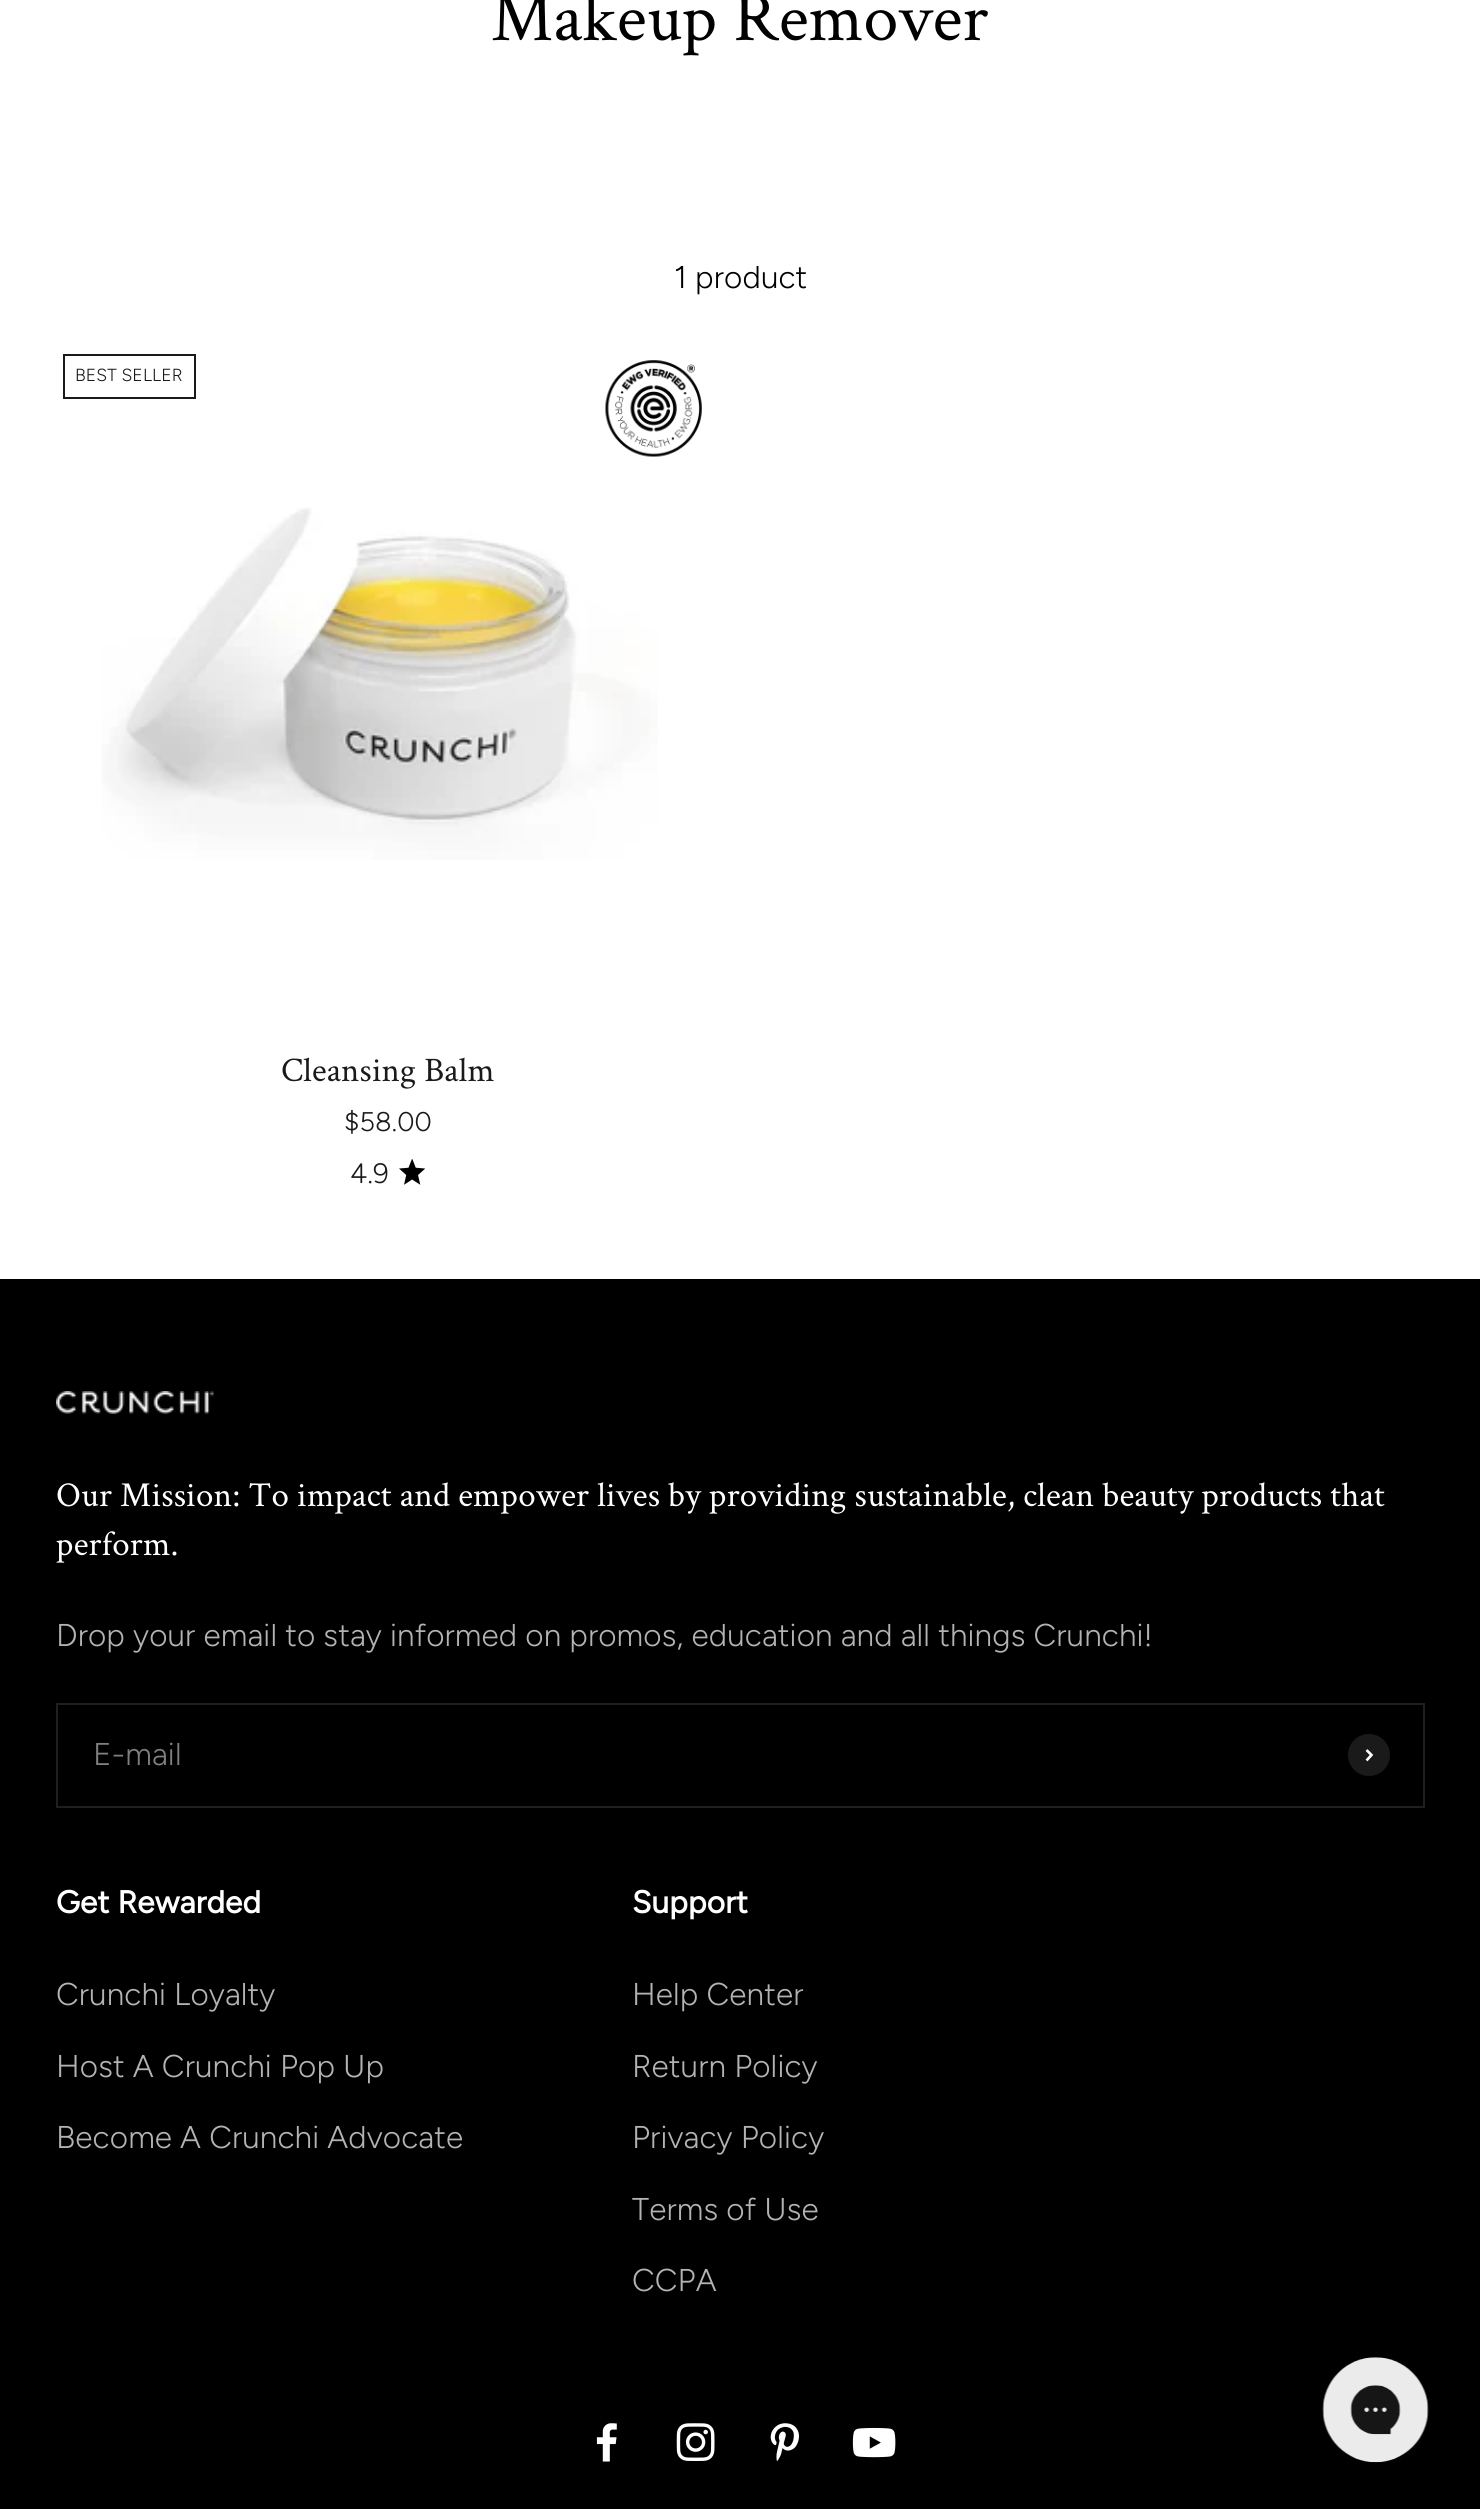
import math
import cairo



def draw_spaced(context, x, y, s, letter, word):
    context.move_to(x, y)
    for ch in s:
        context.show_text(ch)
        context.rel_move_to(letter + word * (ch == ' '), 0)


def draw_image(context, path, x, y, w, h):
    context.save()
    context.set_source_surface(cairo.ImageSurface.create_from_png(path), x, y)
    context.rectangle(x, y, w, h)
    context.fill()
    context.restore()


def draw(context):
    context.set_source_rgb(1, 1, 1)
    context.paint()
    context.rectangle(64, 355, 131, 43)
    context.set_source_rgb(26 / 255, 26 / 255, 26 / 255)
    context.stroke()
    draw_image(context, "images/1.png", 605, 360, 97, 97)
    draw_image(context, "images/2.png", 101, 507, 557, 353)
    draw_image(context, "images/3.png", 399, 1159, 26, 26)
    context.set_source_rgb(0, 0, 0)
    context.rectangle(0, 1279, 1480, 1230)
    context.fill()
    draw_image(context, "images/4.png", 56, 1391, 158, 23)
    context.rectangle(57, 1704, 1367, 103)
    context.set_source_rgb(31 / 255, 31 / 255, 31 / 255)
    context.stroke()
    context.set_source_rgb(26 / 255, 26 / 255, 26 / 255)
    context.arc(1369, 1755, 21, 0, 2 * math.pi)
    context.fill()
    context.new_path()
    context.move_to(1366.5, 1760.5)
    context.line_to(1371.5, 1755)
    context.line_to(1366.5, 1750)
    context.set_source_rgb(1, 1, 1)
    context.set_line_width(2.6)
    context.stroke()
    draw_image(context, "images/5.png", 596, 2423, 21, 39)
    draw_image(context, "images/6.png", 676, 2423, 39, 38)
    draw_image(context, "images/7.png", 770, 2423, 29, 38)
    draw_image(context, "images/8.png", 852, 2427, 44, 31)
    draw_image(context, "images/9.png", 1322, 2357, 107, 106)
    context.select_font_face("Crimson Text")
    context.set_font_size(70)
    context.set_source_rgb(0, 0, 0)
    draw_spaced(context, 491, 40, "Makeup Remover", 0.3, 0)
    context.select_font_face("Figtree Light")
    context.set_font_size(31.5)
    draw_spaced(context, 674, 288, "1 product", 0.15, 0)
    context.set_font_size(17.5)
    context.set_source_rgb(26 / 255, 26 / 255, 26 / 255)
    draw_spaced(context, 75, 381, "BEST SELLER", 0.15, 0)
    context.select_font_face("Crimson Text")
    context.set_font_size(34.5)
    draw_spaced(context, 281, 1081, "Cleansing Balm", 0.2, 0)
    context.select_font_face("Figtree Light")
    context.set_font_size(27)
    draw_spaced(context, 344, 1131, "$58.00", 0.15, 0)
    context.set_font_size(28)
    draw_spaced(context, 350, 1183, "4.9", 0.15, 0)
    context.select_font_face("Crimson Text")
    context.set_font_size(35)
    context.set_source_rgb(1, 1, 1)
    draw_spaced(context, 56, 1506, "Our Mission: To impact and empower lives by providing sustainable, clean beauty products that", 0.18, 0)
    draw_spaced(context, 56, 1555, "perform.", 0.18, 0)
    context.select_font_face("Figtree Light")
    context.set_font_size(31.5)
    context.set_source_rgb(179 / 255, 179 / 255, 179 / 255)
    draw_spaced(context, 56, 1646, "Drop your email to stay informed on promos, education and all things Crunchi!", 0.15, 0)
    context.set_source_rgb(128 / 255, 128 / 255, 128 / 255)
    draw_spaced(context, 93, 1765, "E-mail", 0.15, 0)
    context.select_font_face("Figtree", cairo.FontSlant.NORMAL, cairo.FontWeight.BOLD)
    context.set_source_rgb(1, 1, 1)
    draw_spaced(context, 56, 1913, "Get Rewarded", 0.15, 0)
    context.select_font_face("Figtree Light")
    context.set_source_rgb(179 / 255, 179 / 255, 179 / 255)
    draw_spaced(context, 56, 2005, "Crunchi Loyalty", 0.15, 0)
    draw_spaced(context, 56, 2077, "Host A Crunchi Pop Up", 0.15, 0)
    draw_spaced(context, 56, 2148, "Become A Crunchi Advocate", 0.15, 0)
    context.select_font_face("Figtree", cairo.FontSlant.NORMAL, cairo.FontWeight.BOLD)
    context.set_source_rgb(1, 1, 1)
    draw_spaced(context, 632, 1913, "Support", 0.15, 0)
    context.select_font_face("Figtree Light")
    context.set_source_rgb(179 / 255, 179 / 255, 179 / 255)
    draw_spaced(context, 632, 2005, "Help Center", 0.15, 0)
    draw_spaced(context, 632, 2077, "Return Policy", 0.15, 0)
    draw_spaced(context, 632, 2148, "Privacy Policy", 0.15, 0)
    draw_spaced(context, 632, 2220, "Terms of Use", 0.15, 0)
    draw_spaced(context, 632, 2291, "CCPA", 0.15, 0)


surface = cairo.ImageSurface(cairo.Format.RGB24, 1480, 2509)
context = cairo.Context(surface)
options = cairo.FontOptions()
options.set_hint_metrics(cairo.HintMetrics.OFF)
options.set_hint_style(cairo.HintStyle.NONE)
context.set_font_options(options)
context.set_miter_limit(4)
draw(context)
surface.write_to_png("out.png")
